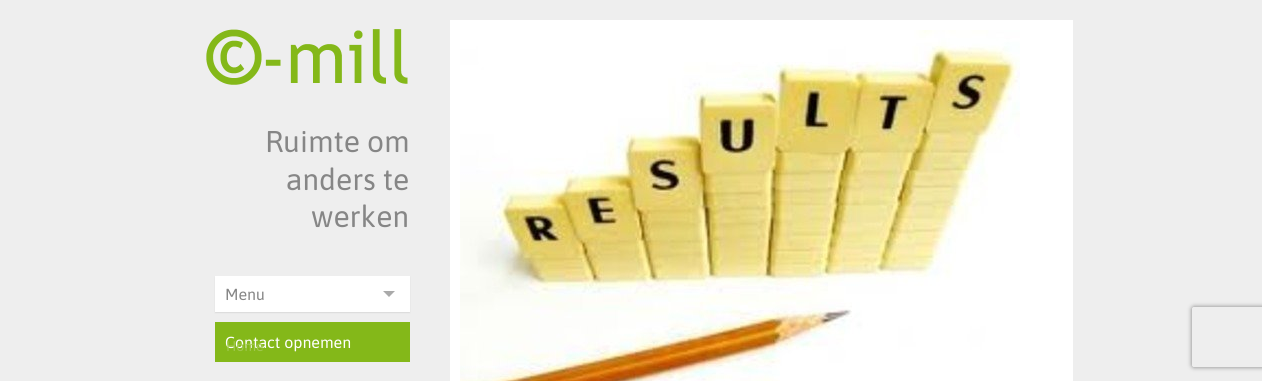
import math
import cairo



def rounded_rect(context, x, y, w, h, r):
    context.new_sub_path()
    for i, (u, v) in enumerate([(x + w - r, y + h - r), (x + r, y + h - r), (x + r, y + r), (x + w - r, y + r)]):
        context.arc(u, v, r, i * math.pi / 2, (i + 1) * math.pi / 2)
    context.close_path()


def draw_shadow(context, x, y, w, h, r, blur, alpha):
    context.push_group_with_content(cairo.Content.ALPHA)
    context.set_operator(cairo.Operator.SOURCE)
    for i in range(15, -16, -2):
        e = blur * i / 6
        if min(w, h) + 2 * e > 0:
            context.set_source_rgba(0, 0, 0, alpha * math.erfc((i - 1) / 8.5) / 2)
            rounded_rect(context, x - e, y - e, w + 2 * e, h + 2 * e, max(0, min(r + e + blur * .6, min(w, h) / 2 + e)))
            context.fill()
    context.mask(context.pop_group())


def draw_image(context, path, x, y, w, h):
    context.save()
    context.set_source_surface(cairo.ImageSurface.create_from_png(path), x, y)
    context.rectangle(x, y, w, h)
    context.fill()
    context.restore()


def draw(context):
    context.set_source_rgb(238 / 255, 238 / 255, 238 / 255)
    context.paint()
    draw_image(context, "images/1.png", 206, 29, 202, 56)
    context.set_source_rgb(50 / 255, 50 / 255, 50 / 255)
    draw_shadow(context, 215, 277, 195, 36, 0, 0.5, 0.1)
    context.set_source_rgb(1, 1, 1)
    context.rectangle(215, 276, 195, 36)
    context.fill()
    context.set_source_rgb(170 / 255, 170 / 255, 170 / 255)
    context.new_path()
    context.move_to(383, 291)
    context.line_to(395, 291)
    context.line_to(389, 297)
    context.close_path()
    context.fill()
    context.set_source_rgb(132 / 255, 184 / 255, 25 / 255)
    context.rectangle(215, 322, 195, 40)
    context.fill()
    context.set_source_rgb(1, 1, 1)
    context.rectangle(450, 20, 623, 361)
    context.fill()
    draw_image(context, "images/2.png", 460, 30, 560, 351)
    context.save()
    context.set_fill_rule(cairo.FillRule.EVEN_ODD)
    context.new_path()
    context.move_to(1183, 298)
    context.line_to(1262, 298)
    context.line_to(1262, 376)
    context.line_to(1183, 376)
    context.close_path()
    context.move_to(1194, 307)
    context.line_to(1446, 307)
    context.curve_to(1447, 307, 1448, 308, 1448, 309)
    context.line_to(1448, 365)
    context.curve_to(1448, 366, 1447, 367, 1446, 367)
    context.line_to(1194, 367)
    context.curve_to(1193, 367, 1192, 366, 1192, 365)
    context.line_to(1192, 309)
    context.curve_to(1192, 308, 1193, 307, 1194, 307)
    context.close_path()
    context.clip()
    context.set_source_rgb(128 / 255, 128 / 255, 128 / 255)
    draw_shadow(context, 1192, 307, 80, 60, 2, 2.5, 1)
    context.restore()
    context.select_font_face("Asap")
    context.set_font_size(30)
    context.set_source_rgb(134 / 255, 134 / 255, 134 / 255)
    context.move_to(265, 152)
    context.show_text("Ruimte om")
    context.move_to(286, 190)
    context.show_text("anders te")
    context.move_to(311, 227)
    context.show_text("werken")
    context.set_font_size(16)
    context.move_to(225, 300)
    context.show_text("Menu")
    context.set_source_rgb(1, 1, 1)
    context.move_to(225, 348)
    context.show_text("Contact opnemen")
    context.set_font_size(14)
    context.set_source_rgb(159 / 255, 200 / 255, 76 / 255)
    context.move_to(226, 351)
    context.show_text("Home")


surface = cairo.ImageSurface(cairo.Format.RGB24, 1262, 381)
context = cairo.Context(surface)
options = cairo.FontOptions()
options.set_hint_metrics(cairo.HintMetrics.OFF)
options.set_hint_style(cairo.HintStyle.NONE)
context.set_font_options(options)
context.set_miter_limit(4)
draw(context)
surface.write_to_png("out.png")
